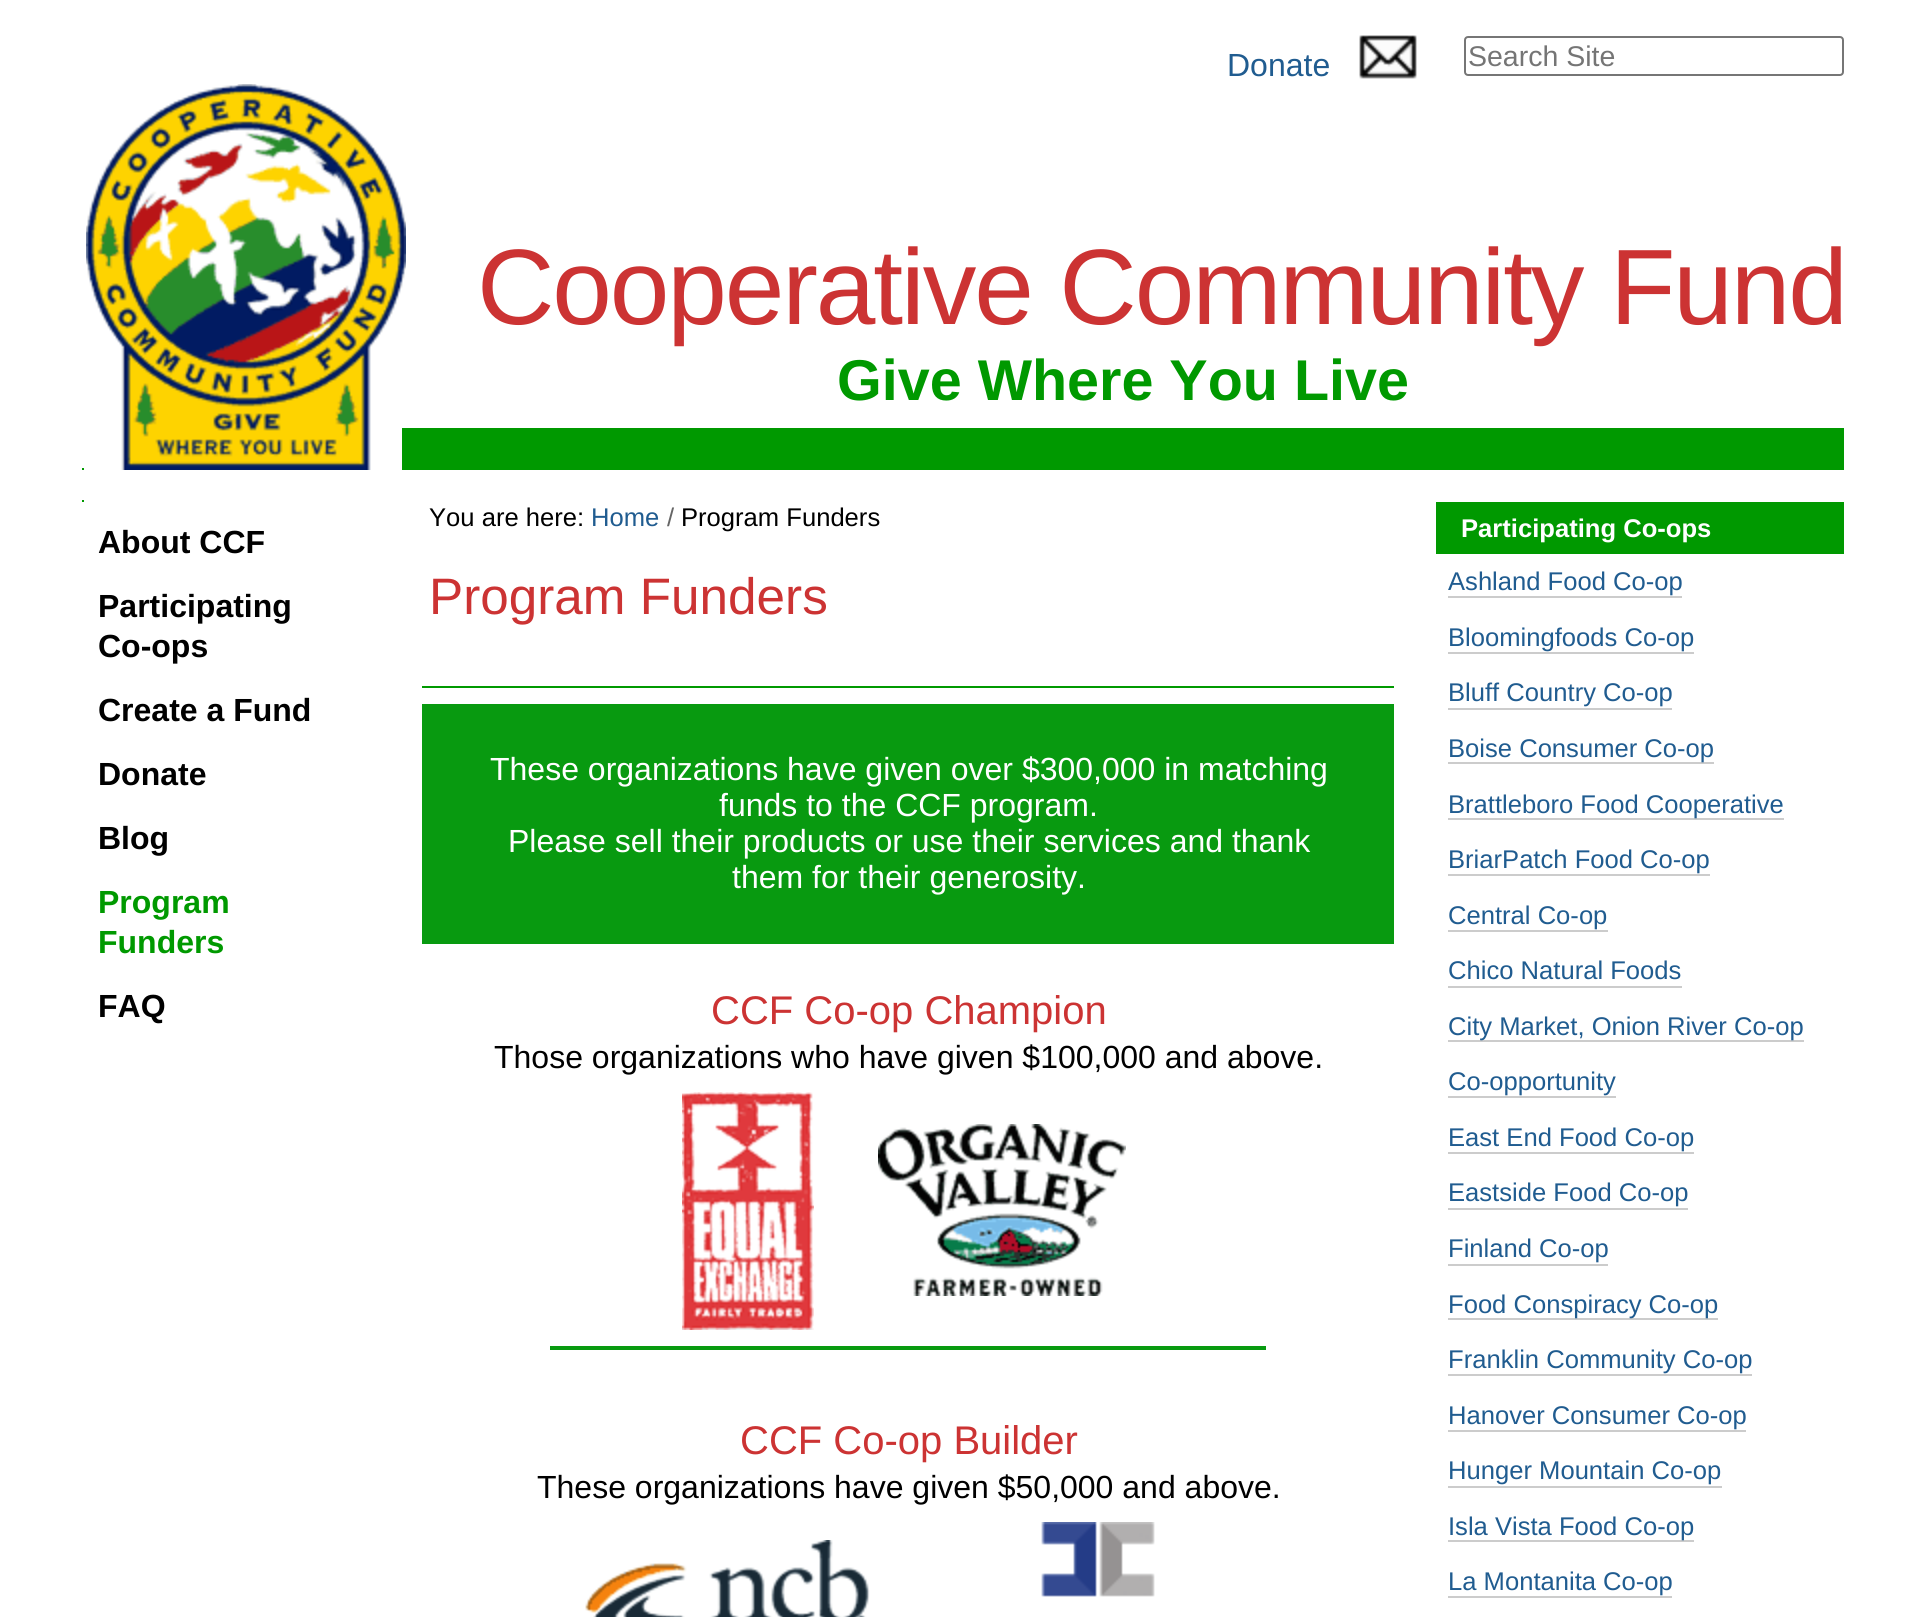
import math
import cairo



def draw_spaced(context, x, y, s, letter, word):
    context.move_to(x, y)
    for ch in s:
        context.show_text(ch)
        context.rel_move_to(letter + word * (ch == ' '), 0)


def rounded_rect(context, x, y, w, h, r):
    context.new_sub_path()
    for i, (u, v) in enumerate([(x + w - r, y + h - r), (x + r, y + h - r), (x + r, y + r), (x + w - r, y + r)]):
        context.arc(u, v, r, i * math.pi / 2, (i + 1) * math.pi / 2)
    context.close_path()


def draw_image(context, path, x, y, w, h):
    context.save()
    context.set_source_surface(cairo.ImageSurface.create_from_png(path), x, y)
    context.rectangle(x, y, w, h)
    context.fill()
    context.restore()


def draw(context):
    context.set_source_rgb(1, 1, 1)
    context.paint()
    draw_image(context, "images/1.png", 1359, 35, 58, 44)
    rounded_rect(context, 1465, 37, 378, 38, 3)
    context.set_source_rgb(118 / 255, 118 / 255, 118 / 255)
    context.stroke()
    draw_image(context, "images/2.png", 86, 84, 320, 386)
    context.set_source_rgb(0, 153 / 255, 0)
    context.rectangle(402, 428, 1442, 42)
    context.fill()
    context.rectangle(82, 468, 2, 2)
    context.fill()
    context.rectangle(82, 500, 2, 2)
    context.fill()
    context.rectangle(422, 686, 972, 2)
    context.fill()
    context.set_source_rgb(8 / 255, 154 / 255, 16 / 255)
    context.rectangle(422, 704, 972, 240)
    context.fill()
    draw_image(context, "images/3.png", 682, 1092, 132, 238)
    draw_image(context, "images/4.png", 878, 1124, 248, 172)
    context.rectangle(550, 1346, 716, 4)
    context.fill()
    draw_image(context, "images/5.png", 585, 1540, 285, 77)
    draw_image(context, "images/6.png", 1041, 1522, 114, 75)
    context.set_source_rgb(0, 153 / 255, 0)
    context.rectangle(1436, 502, 408, 52)
    context.fill()
    context.set_source_rgb(204 / 255, 204 / 255, 204 / 255)
    context.rectangle(1448, 596, 234, 2)
    context.fill()
    context.rectangle(1448, 652, 246, 2)
    context.fill()
    context.rectangle(1448, 708, 224, 2)
    context.fill()
    context.rectangle(1448, 762, 266, 2)
    context.fill()
    context.rectangle(1448, 818, 336, 2)
    context.fill()
    context.rectangle(1448, 874, 262, 2)
    context.fill()
    context.rectangle(1448, 930, 160, 2)
    context.fill()
    context.rectangle(1448, 986, 234, 2)
    context.fill()
    context.rectangle(1448, 1040, 356, 2)
    context.fill()
    context.rectangle(1448, 1096, 168, 2)
    context.fill()
    context.rectangle(1448, 1152, 246, 2)
    context.fill()
    context.rectangle(1448, 1208, 240, 2)
    context.fill()
    context.rectangle(1448, 1264, 160, 2)
    context.fill()
    context.rectangle(1448, 1318, 270, 2)
    context.fill()
    context.rectangle(1448, 1374, 304, 2)
    context.fill()
    context.rectangle(1448, 1430, 298, 2)
    context.fill()
    context.rectangle(1448, 1486, 274, 2)
    context.fill()
    context.rectangle(1448, 1540, 246, 2)
    context.fill()
    context.rectangle(1448, 1596, 224, 2)
    context.fill()
    context.select_font_face("Liberation Sans")
    context.set_font_size(32)
    context.set_source_rgb(32 / 255, 92 / 255, 144 / 255)
    context.move_to(1227, 76)
    context.show_text("Donate")
    context.set_font_size(28.5)
    context.set_source_rgb(117 / 255, 117 / 255, 117 / 255)
    context.move_to(1468, 66)
    context.show_text("Search Site")
    context.set_font_size(107.25)
    context.set_source_rgb(204 / 255, 51 / 255, 51 / 255)
    draw_spaced(context, 477, 324, "Cooperative Community Fund", -2.15, 0)
    context.select_font_face("Liberation Sans", cairo.FontSlant.NORMAL, cairo.FontWeight.BOLD)
    context.set_font_size(57.5)
    context.set_source_rgb(0, 153 / 255, 0)
    context.move_to(837, 400)
    context.show_text("Give Where You Live")
    context.set_font_size(32)
    context.set_source_rgb(0, 0, 0)
    context.move_to(98, 553)
    context.show_text("About CCF")
    context.move_to(98, 617)
    context.show_text("Participating")
    context.move_to(98, 657)
    context.show_text("Co-ops")
    context.move_to(98, 721)
    context.show_text("Create a Fund")
    context.move_to(98, 785)
    context.show_text("Donate")
    context.move_to(98, 849)
    context.show_text("Blog")
    context.set_source_rgb(0, 153 / 255, 0)
    context.move_to(98, 913)
    context.show_text("Program")
    context.move_to(98, 953)
    context.show_text("Funders")
    context.set_source_rgb(0, 0, 0)
    context.move_to(98, 1017)
    context.show_text("FAQ")
    context.select_font_face("Liberation Sans")
    context.set_font_size(25.6)
    context.move_to(429, 526)
    context.show_text("You are here:")
    context.set_source_rgb(32 / 255, 92 / 255, 144 / 255)
    context.move_to(591, 526)
    context.show_text("Home")
    context.set_source_rgb(102 / 255, 102 / 255, 102 / 255)
    context.move_to(667, 526)
    context.show_text("/")
    context.set_source_rgb(0, 0, 0)
    context.move_to(681, 526)
    context.show_text("Program Funders")
    context.set_font_size(51.25)
    context.set_source_rgb(204 / 255, 51 / 255, 51 / 255)
    context.move_to(429, 614)
    context.show_text("Program Funders")
    context.set_font_size(32)
    context.set_source_rgb(1, 1, 1)
    context.move_to(490, 780)
    context.show_text("These organizations have given over $300,000 in matching")
    context.move_to(719, 816)
    context.show_text("funds to the CCF program.")
    context.move_to(508, 852)
    context.show_text("Please sell their products or use their services and thank")
    context.move_to(732, 888)
    context.show_text("them for their generosity.")
    context.set_font_size(40)
    context.set_source_rgb(204 / 255, 51 / 255, 51 / 255)
    context.move_to(711, 1024)
    context.show_text("CCF Co-op Champion")
    context.set_font_size(32)
    context.set_source_rgb(0, 0, 0)
    context.move_to(494, 1068)
    context.show_text("Those organizations who have given $100,000 and above.")
    context.set_font_size(40)
    context.set_source_rgb(204 / 255, 51 / 255, 51 / 255)
    context.move_to(740, 1454)
    context.show_text("CCF Co-op Builder")
    context.set_font_size(32)
    context.set_source_rgb(0, 0, 0)
    context.move_to(537, 1498)
    context.show_text("These organizations have given $50,000 and above.")
    context.select_font_face("Liberation Sans", cairo.FontSlant.NORMAL, cairo.FontWeight.BOLD)
    context.set_font_size(25.6)
    context.set_source_rgb(1, 1, 1)
    context.move_to(1461, 537)
    context.show_text("Participating Co-ops")
    context.select_font_face("Liberation Sans")
    context.set_source_rgb(32 / 255, 92 / 255, 144 / 255)
    context.move_to(1448, 590)
    context.show_text("Ashland Food Co-op")
    context.move_to(1448, 646)
    context.show_text("Bloomingfoods Co-op")
    context.move_to(1448, 701)
    context.show_text("Bluff Country Co-op")
    context.move_to(1448, 757)
    context.show_text("Boise Consumer Co-op")
    context.move_to(1448, 813)
    context.show_text("Brattleboro Food Cooperative")
    context.move_to(1448, 868)
    context.show_text("BriarPatch Food Co-op")
    context.move_to(1448, 924)
    context.show_text("Central Co-op")
    context.move_to(1448, 979)
    context.show_text("Chico Natural Foods")
    context.move_to(1448, 1035)
    context.show_text("City Market, Onion River Co-op")
    context.move_to(1448, 1090)
    context.show_text("Co-opportunity")
    context.move_to(1448, 1146)
    context.show_text("East End Food Co-op")
    context.move_to(1448, 1201)
    context.show_text("Eastside Food Co-op")
    context.move_to(1448, 1257)
    context.show_text("Finland Co-op")
    context.move_to(1448, 1313)
    context.show_text("Food Conspiracy Co-op")
    context.move_to(1448, 1368)
    context.show_text("Franklin Community Co-op")
    context.move_to(1448, 1424)
    context.show_text("Hanover Consumer Co-op")
    context.move_to(1448, 1479)
    context.show_text("Hunger Mountain Co-op")
    context.move_to(1448, 1535)
    context.show_text("Isla Vista Food Co-op")
    context.move_to(1448, 1590)
    context.show_text("La Montanita Co-op")


surface = cairo.ImageSurface(cairo.Format.RGB24, 1930, 1617)
context = cairo.Context(surface)
options = cairo.FontOptions()
options.set_hint_metrics(cairo.HintMetrics.OFF)
options.set_hint_style(cairo.HintStyle.NONE)
context.set_font_options(options)
context.set_miter_limit(4)
draw(context)
surface.write_to_png("out.png")
